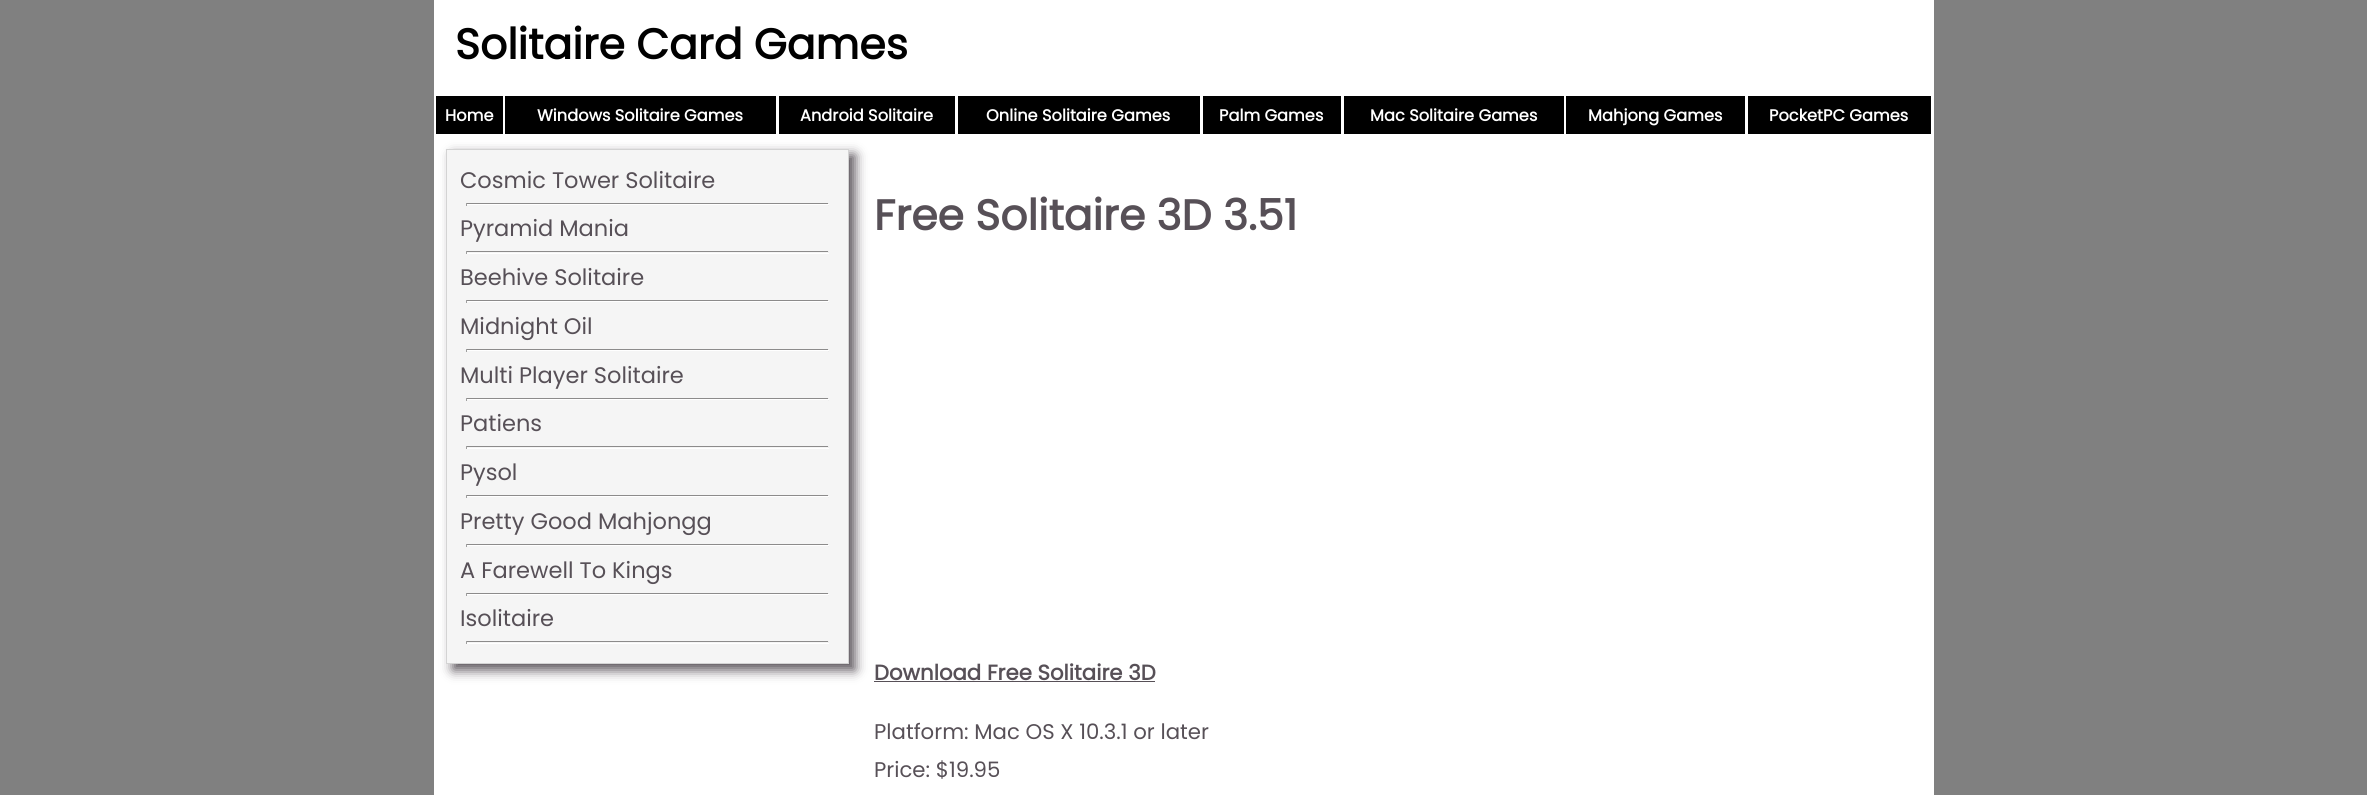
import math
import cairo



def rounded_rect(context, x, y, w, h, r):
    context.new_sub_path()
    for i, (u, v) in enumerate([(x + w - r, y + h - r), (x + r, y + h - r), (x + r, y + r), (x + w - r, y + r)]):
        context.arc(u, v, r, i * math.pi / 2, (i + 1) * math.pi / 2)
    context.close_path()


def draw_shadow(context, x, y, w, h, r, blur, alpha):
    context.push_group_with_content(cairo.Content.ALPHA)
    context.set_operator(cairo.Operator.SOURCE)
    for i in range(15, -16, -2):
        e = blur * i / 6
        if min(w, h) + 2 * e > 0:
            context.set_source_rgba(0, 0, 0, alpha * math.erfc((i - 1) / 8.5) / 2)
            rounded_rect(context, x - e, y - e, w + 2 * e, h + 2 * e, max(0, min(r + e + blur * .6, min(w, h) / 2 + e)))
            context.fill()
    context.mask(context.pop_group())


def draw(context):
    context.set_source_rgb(128 / 255, 128 / 255, 128 / 255)
    context.paint()
    context.set_source_rgb(1, 1, 1)
    context.rectangle(434, 0, 1500, 795)
    context.fill()
    context.set_source_rgb(0, 0, 0)
    context.rectangle(436, 96, 67, 38)
    context.fill()
    context.rectangle(505, 96, 271, 38)
    context.fill()
    context.rectangle(779, 96, 176, 38)
    context.fill()
    context.rectangle(958, 96, 242, 38)
    context.fill()
    context.rectangle(1203, 96, 138, 38)
    context.fill()
    context.rectangle(1344, 96, 220, 38)
    context.fill()
    context.rectangle(1566, 96, 179, 38)
    context.fill()
    context.rectangle(1748, 96, 183, 38)
    context.fill()
    context.set_source_rgb(87 / 255, 80 / 255, 87 / 255)
    draw_shadow(context, 453, 155, 402, 515, 0, 6, 1)
    context.set_source_rgb(245 / 255, 245 / 255, 245 / 255)
    context.rectangle(446.5, 149.5, 402, 514)
    context.fill_preserve()
    context.set_source_rgb(211 / 255, 211 / 255, 211 / 255)
    context.set_line_width(1)
    context.stroke()
    context.set_source_rgb(140 / 255, 139 / 255, 139 / 255)
    context.rectangle(466, 203, 363, 1)
    context.fill()
    context.set_source_rgb(238 / 255, 238 / 255, 238 / 255)
    context.rectangle(828, 203, 1, 3)
    context.fill()
    context.set_source_rgb(1, 1, 1)
    context.rectangle(466, 204, 363, 1)
    context.fill()
    context.set_source_rgb(159 / 255, 159 / 255, 159 / 255)
    context.rectangle(466, 203, 1, 3)
    context.fill()
    context.set_source_rgb(140 / 255, 139 / 255, 139 / 255)
    context.rectangle(466, 251, 363, 1)
    context.fill()
    context.set_source_rgb(238 / 255, 238 / 255, 238 / 255)
    context.rectangle(828, 251, 1, 3)
    context.fill()
    context.set_source_rgb(1, 1, 1)
    context.rectangle(466, 253, 363, 1)
    context.fill()
    context.set_source_rgb(159 / 255, 159 / 255, 159 / 255)
    context.rectangle(466, 251, 1, 3)
    context.fill()
    context.set_source_rgb(140 / 255, 139 / 255, 139 / 255)
    context.rectangle(466, 300, 363, 1)
    context.fill()
    context.set_source_rgb(238 / 255, 238 / 255, 238 / 255)
    context.rectangle(828, 300, 1, 3)
    context.fill()
    context.set_source_rgb(1, 1, 1)
    context.rectangle(466, 301, 363, 1)
    context.fill()
    context.set_source_rgb(159 / 255, 159 / 255, 159 / 255)
    context.rectangle(466, 300, 1, 3)
    context.fill()
    context.set_source_rgb(140 / 255, 139 / 255, 139 / 255)
    context.rectangle(466, 349, 363, 1)
    context.fill()
    context.set_source_rgb(238 / 255, 238 / 255, 238 / 255)
    context.rectangle(828, 349, 1, 3)
    context.fill()
    context.set_source_rgb(1, 1, 1)
    context.rectangle(466, 350, 363, 1)
    context.fill()
    context.set_source_rgb(159 / 255, 159 / 255, 159 / 255)
    context.rectangle(466, 349, 1, 3)
    context.fill()
    context.set_source_rgb(140 / 255, 139 / 255, 139 / 255)
    context.rectangle(466, 398, 363, 1)
    context.fill()
    context.set_source_rgb(238 / 255, 238 / 255, 238 / 255)
    context.rectangle(828, 398, 1, 3)
    context.fill()
    context.set_source_rgb(1, 1, 1)
    context.rectangle(466, 399, 363, 1)
    context.fill()
    context.set_source_rgb(159 / 255, 159 / 255, 159 / 255)
    context.rectangle(466, 398, 1, 3)
    context.fill()
    context.set_source_rgb(140 / 255, 139 / 255, 139 / 255)
    context.rectangle(466, 446, 363, 1)
    context.fill()
    context.set_source_rgb(238 / 255, 238 / 255, 238 / 255)
    context.rectangle(828, 446, 1, 3)
    context.fill()
    context.set_source_rgb(1, 1, 1)
    context.rectangle(466, 448, 363, 1)
    context.fill()
    context.set_source_rgb(159 / 255, 159 / 255, 159 / 255)
    context.rectangle(466, 446, 1, 3)
    context.fill()
    context.set_source_rgb(140 / 255, 139 / 255, 139 / 255)
    context.rectangle(466, 495, 363, 1)
    context.fill()
    context.set_source_rgb(238 / 255, 238 / 255, 238 / 255)
    context.rectangle(828, 495, 1, 3)
    context.fill()
    context.set_source_rgb(1, 1, 1)
    context.rectangle(466, 496, 363, 1)
    context.fill()
    context.set_source_rgb(159 / 255, 159 / 255, 159 / 255)
    context.rectangle(466, 495, 1, 3)
    context.fill()
    context.set_source_rgb(140 / 255, 139 / 255, 139 / 255)
    context.rectangle(466, 544, 363, 1)
    context.fill()
    context.set_source_rgb(238 / 255, 238 / 255, 238 / 255)
    context.rectangle(828, 544, 1, 3)
    context.fill()
    context.set_source_rgb(1, 1, 1)
    context.rectangle(466, 545, 363, 1)
    context.fill()
    context.set_source_rgb(159 / 255, 159 / 255, 159 / 255)
    context.rectangle(466, 544, 1, 3)
    context.fill()
    context.set_source_rgb(140 / 255, 139 / 255, 139 / 255)
    context.rectangle(466, 593, 363, 1)
    context.fill()
    context.set_source_rgb(238 / 255, 238 / 255, 238 / 255)
    context.rectangle(828, 593, 1, 3)
    context.fill()
    context.set_source_rgb(1, 1, 1)
    context.rectangle(466, 594, 363, 1)
    context.fill()
    context.set_source_rgb(159 / 255, 159 / 255, 159 / 255)
    context.rectangle(466, 593, 1, 3)
    context.fill()
    context.set_source_rgb(140 / 255, 139 / 255, 139 / 255)
    context.rectangle(466, 641, 363, 1)
    context.fill()
    context.set_source_rgb(238 / 255, 238 / 255, 238 / 255)
    context.rectangle(828, 641, 1, 3)
    context.fill()
    context.set_source_rgb(1, 1, 1)
    context.rectangle(466, 643, 363, 1)
    context.fill()
    context.set_source_rgb(159 / 255, 159 / 255, 159 / 255)
    context.rectangle(466, 641, 1, 3)
    context.fill()
    context.set_source_rgb(87 / 255, 80 / 255, 87 / 255)
    context.rectangle(874, 681, 281, 1)
    context.fill()
    context.select_font_face("Poppins", cairo.FontSlant.NORMAL, cairo.FontWeight.BOLD)
    context.set_font_size(42.5)
    context.set_source_rgb(0, 0, 0)
    context.move_to(455, 59)
    context.show_text("Solitaire Card Games")
    context.set_font_size(16.25)
    context.set_source_rgb(1, 1, 1)
    context.move_to(445, 121)
    context.show_text("Home")
    context.move_to(537, 121)
    context.show_text("Windows Solitaire Games")
    context.move_to(800, 121)
    context.show_text("Android Solitaire")
    context.move_to(986, 121)
    context.show_text("Online Solitaire Games")
    context.move_to(1219, 121)
    context.show_text("Palm Games")
    context.move_to(1370, 121)
    context.show_text("Mac Solitaire Games")
    context.move_to(1588, 121)
    context.show_text("Mahjong Games")
    context.move_to(1769, 121)
    context.show_text("PocketPC Games")
    context.select_font_face("Poppins")
    context.set_font_size(22.5)
    context.set_source_rgb(87 / 255, 80 / 255, 87 / 255)
    context.move_to(460, 188)
    context.show_text("Cosmic Tower Solitaire")
    context.move_to(460, 236)
    context.show_text("Pyramid Mania")
    context.move_to(460, 285)
    context.show_text("Beehive Solitaire")
    context.move_to(460, 334)
    context.show_text("Midnight Oil")
    context.move_to(460, 383)
    context.show_text("Multi Player Solitaire")
    context.move_to(460, 431)
    context.show_text("Patiens")
    context.move_to(460, 480)
    context.show_text("Pysol")
    context.move_to(460, 529)
    context.show_text("Pretty Good Mahjongg")
    context.move_to(460, 578)
    context.show_text("A Farewell To Kings")
    context.move_to(460, 626)
    context.show_text("Isolitaire")
    context.select_font_face("Poppins", cairo.FontSlant.NORMAL, cairo.FontWeight.BOLD)
    context.set_font_size(42.5)
    context.move_to(874, 230)
    context.show_text("Free Solitaire 3D 3.51")
    context.set_font_size(21.25)
    context.move_to(874, 680)
    context.show_text("Download Free Solitaire 3D")
    context.select_font_face("Poppins")
    context.move_to(874, 739)
    context.show_text("Platform: Mac OS X 10.3.1 or later")
    context.move_to(874, 777)
    context.show_text("Price: $19.95")


surface = cairo.ImageSurface(cairo.Format.RGB24, 2367, 795)
context = cairo.Context(surface)
options = cairo.FontOptions()
options.set_hint_metrics(cairo.HintMetrics.OFF)
options.set_hint_style(cairo.HintStyle.NONE)
context.set_font_options(options)
context.set_miter_limit(4)
draw(context)
surface.write_to_png("out.png")
